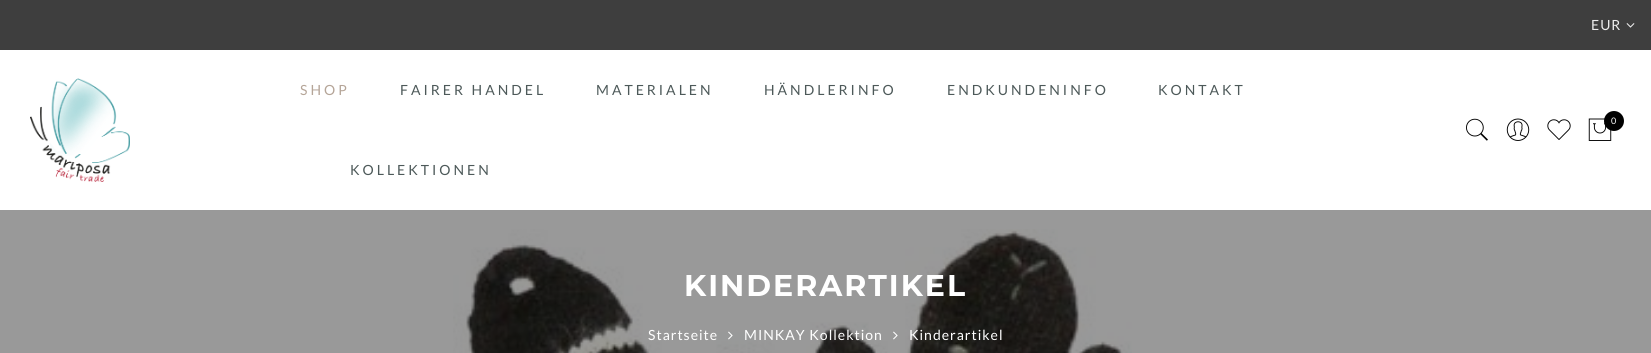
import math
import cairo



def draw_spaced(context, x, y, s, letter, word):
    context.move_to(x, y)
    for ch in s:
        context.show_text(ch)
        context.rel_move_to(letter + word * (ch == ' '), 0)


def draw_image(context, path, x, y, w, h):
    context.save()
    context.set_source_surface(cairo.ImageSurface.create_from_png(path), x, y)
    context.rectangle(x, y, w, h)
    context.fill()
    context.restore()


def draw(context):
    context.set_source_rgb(1, 1, 1)
    context.paint()
    context.set_source_rgb(153 / 255, 153 / 255, 153 / 255)
    context.rectangle(0, 210, 1651, 143)
    context.fill()
    context.set_source_rgb(62 / 255, 62 / 255, 62 / 255)
    context.rectangle(0, 0, 1651, 50)
    context.fill()
    draw_image(context, "images/1.png", 1626, 23, 9, 5)
    draw_image(context, "images/2.png", 30, 78, 100, 104)
    draw_image(context, "images/3.png", 1466, 118, 22, 23)
    draw_image(context, "images/4.png", 1506, 118, 24, 23)
    draw_image(context, "images/5.png", 1547, 119, 24, 21)
    draw_image(context, "images/6.png", 1588, 118, 24, 23)
    context.set_source_rgb(0, 0, 0)
    context.arc(1614, 121, 10, 0, 2 * math.pi)
    context.fill()
    draw_image(context, "images/7.png", 453, 229, 679, 124)
    draw_image(context, "images/8.png", 728, 331, 5, 9)
    draw_image(context, "images/9.png", 893, 331, 5, 9)
    context.select_font_face("Lato")
    context.set_font_size(14)
    context.set_source_rgb(236 / 255, 236 / 255, 236 / 255)
    draw_spaced(context, 1591, 30, "EUR", 1, 0)
    context.set_source_rgb(181 / 255, 165 / 255, 152 / 255)
    draw_spaced(context, 300, 95, "SHOP", 3, 0)
    context.set_source_rgb(77 / 255, 89 / 255, 89 / 255)
    draw_spaced(context, 400, 95, "FAIRER HANDEL", 3, 0)
    draw_spaced(context, 596, 95, "MATERIALEN", 3, 0)
    draw_spaced(context, 764, 95, "HÄNDLERINFO", 3, 0)
    draw_spaced(context, 947, 95, "ENDKUNDENINFO", 3, 0)
    draw_spaced(context, 1158, 95, "KONTAKT", 3, 0)
    draw_spaced(context, 350, 175, "KOLLEKTIONEN", 3, 0)
    context.set_font_size(9)
    context.set_source_rgb(1, 1, 1)
    draw_spaced(context, 1611, 124, "0", 1, 0)
    context.select_font_face("Montserrat", cairo.FontSlant.NORMAL, cairo.FontWeight.BOLD)
    context.set_font_size(30)
    draw_spaced(context, 684, 296, "KINDERARTIKEL", 2, 0)
    context.select_font_face("Lato")
    context.set_font_size(14)
    draw_spaced(context, 648, 340, "Startseite", 1, 0)
    draw_spaced(context, 744, 340, "MINKAY Kollektion", 1, 0)
    draw_spaced(context, 909, 340, "Kinderartikel", 1, 0)


surface = cairo.ImageSurface(cairo.Format.RGB24, 1651, 353)
context = cairo.Context(surface)
options = cairo.FontOptions()
options.set_hint_metrics(cairo.HintMetrics.OFF)
options.set_hint_style(cairo.HintStyle.NONE)
context.set_font_options(options)
context.set_miter_limit(4)
draw(context)
surface.write_to_png("out.png")
